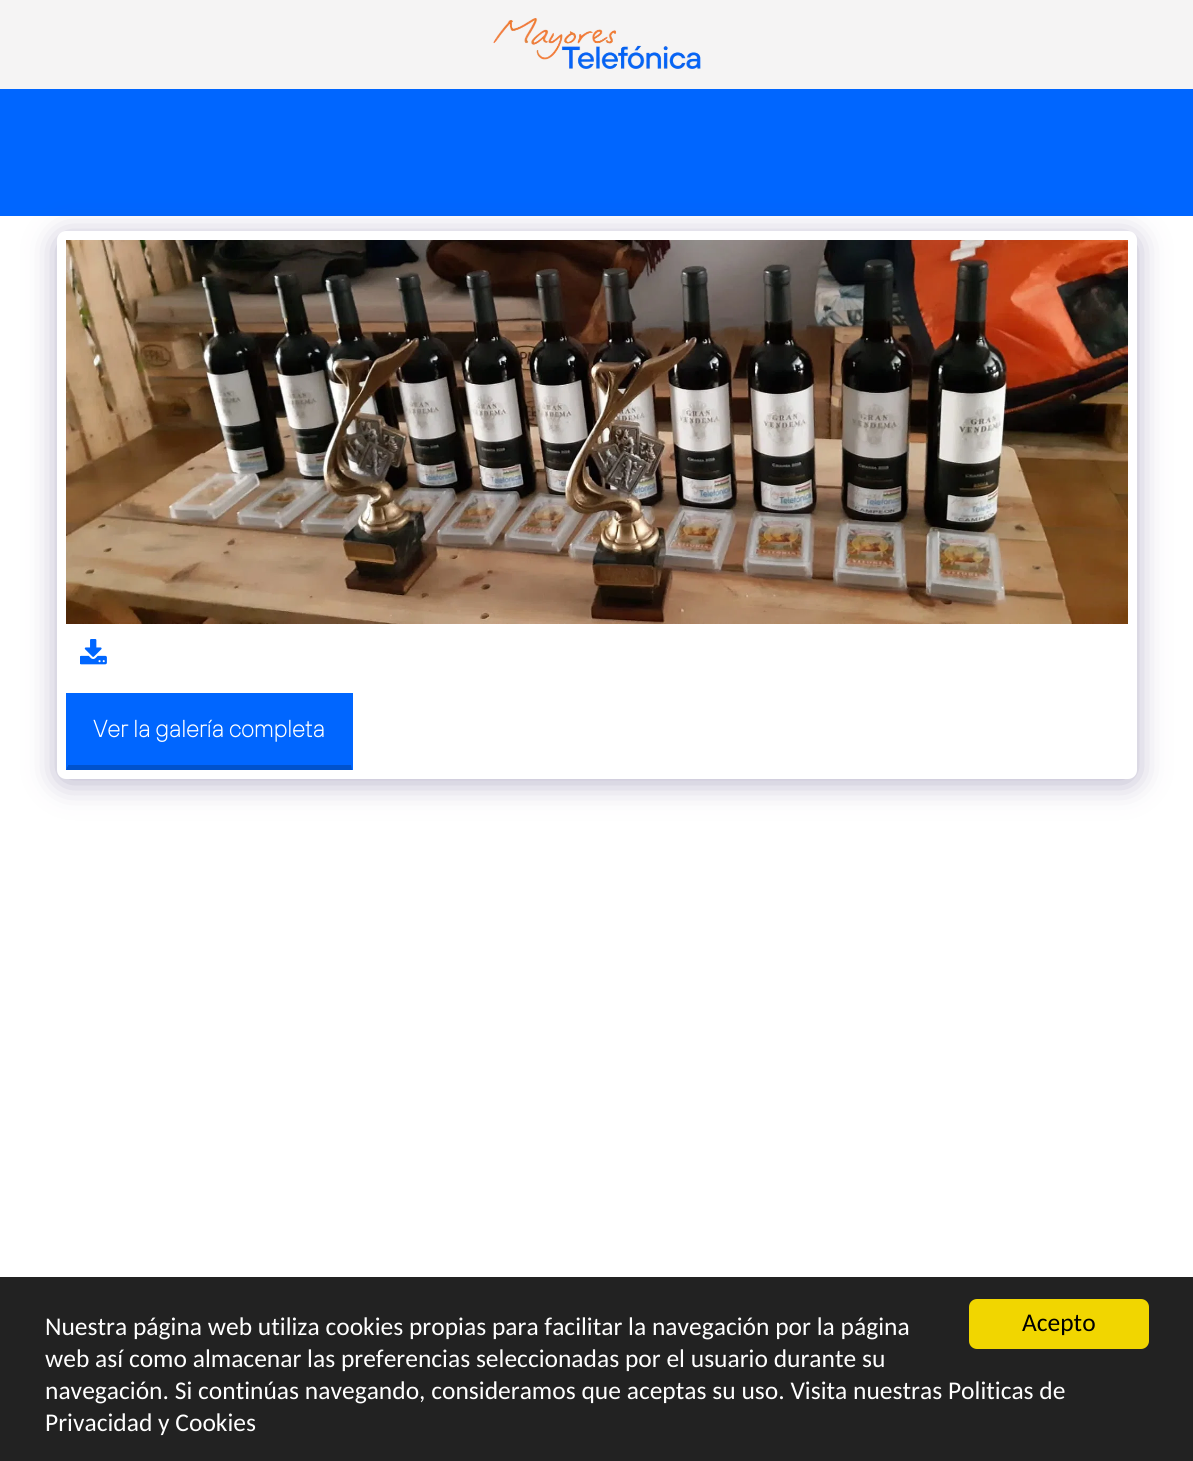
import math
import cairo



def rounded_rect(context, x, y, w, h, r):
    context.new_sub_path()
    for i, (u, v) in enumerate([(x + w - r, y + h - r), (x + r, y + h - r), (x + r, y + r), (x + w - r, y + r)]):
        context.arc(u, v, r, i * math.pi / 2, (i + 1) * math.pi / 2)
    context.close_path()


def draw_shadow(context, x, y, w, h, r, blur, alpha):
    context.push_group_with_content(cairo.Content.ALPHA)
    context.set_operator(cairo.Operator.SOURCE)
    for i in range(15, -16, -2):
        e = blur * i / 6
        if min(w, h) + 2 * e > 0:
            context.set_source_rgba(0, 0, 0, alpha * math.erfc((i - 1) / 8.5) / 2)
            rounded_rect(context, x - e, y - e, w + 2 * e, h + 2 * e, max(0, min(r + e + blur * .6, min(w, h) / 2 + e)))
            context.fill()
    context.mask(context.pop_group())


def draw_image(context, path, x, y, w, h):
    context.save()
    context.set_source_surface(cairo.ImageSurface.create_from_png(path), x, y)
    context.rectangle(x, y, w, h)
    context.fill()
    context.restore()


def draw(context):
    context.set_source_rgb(1, 1, 1)
    context.paint()
    context.set_source_rgb(245 / 255, 244 / 255, 244 / 255)
    context.rectangle(0, 0, 1193, 89)
    context.fill()
    draw_image(context, "images/1.png", 493, 18, 208, 51)
    context.set_source_rgb(0, 102 / 255, 1)
    context.rectangle(0, 89, 1193, 127)
    context.fill()
    context.set_source_rgb(77 / 255, 63 / 255, 122 / 255)
    draw_shadow(context, 57, 236, 1080, 547, 9, 15, 0.4)
    context.set_source_rgb(1, 1, 1)
    rounded_rect(context, 57, 231, 1080, 548, 9)
    context.fill()
    draw_image(context, "images/2.png", 66, 240, 1062, 384)
    draw_image(context, "images/3.png", 80, 639, 27, 26)
    context.set_source_rgb(0, 102 / 255, 1)
    context.rectangle(66, 693, 287, 77)
    context.fill()
    context.set_source_rgb(0, 82 / 255, 204 / 255)
    context.new_path()
    context.move_to(352, 770)
    context.line_to(66, 770)
    context.line_to(68, 765)
    context.line_to(351, 765)
    context.close_path()
    context.fill()
    context.set_source_rgb(0, 102 / 255, 1)
    context.new_path()
    context.move_to(66, 770)
    context.line_to(66, 693)
    context.line_to(68, 694)
    context.line_to(68, 765)
    context.close_path()
    context.fill()
    context.set_source_rgb(34 / 255, 34 / 255, 34 / 255)
    context.rectangle(0, 1277, 1193, 184)
    context.fill()
    context.set_source_rgb(241 / 255, 214 / 255, 0)
    rounded_rect(context, 969, 1299, 180, 50, 8)
    context.fill()
    context.select_font_face("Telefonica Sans", cairo.FontSlant.NORMAL, cairo.FontWeight.BOLD)
    context.set_font_size(23.6)
    context.set_source_rgb(1, 1, 1)
    context.move_to(93, 737)
    context.show_text("Ver la galería completa")
    context.select_font_face("Carlito")
    context.set_font_size(25.5)
    context.set_source_rgb(0, 0, 0)
    context.move_to(1022, 1331)
    context.show_text("Acepto")
    context.set_source_rgb(1, 1, 1)
    context.move_to(45, 1335)
    context.show_text("Nuestra página web utiliza cookies propias para facilitar la navegación por la página")
    context.move_to(45, 1367)
    context.show_text("web así como almacenar las preferencias seleccionadas por el usuario durante su")
    context.move_to(45, 1399)
    context.show_text("navegación. Si continúas navegando, consideramos que aceptas su uso. Visita nuestras Politicas de")
    context.move_to(45, 1431)
    context.show_text("Privacidad y Cookies")


surface = cairo.ImageSurface(cairo.Format.RGB24, 1193, 1461)
context = cairo.Context(surface)
options = cairo.FontOptions()
options.set_hint_metrics(cairo.HintMetrics.OFF)
options.set_hint_style(cairo.HintStyle.NONE)
context.set_font_options(options)
context.set_miter_limit(4)
draw(context)
surface.write_to_png("out.png")
